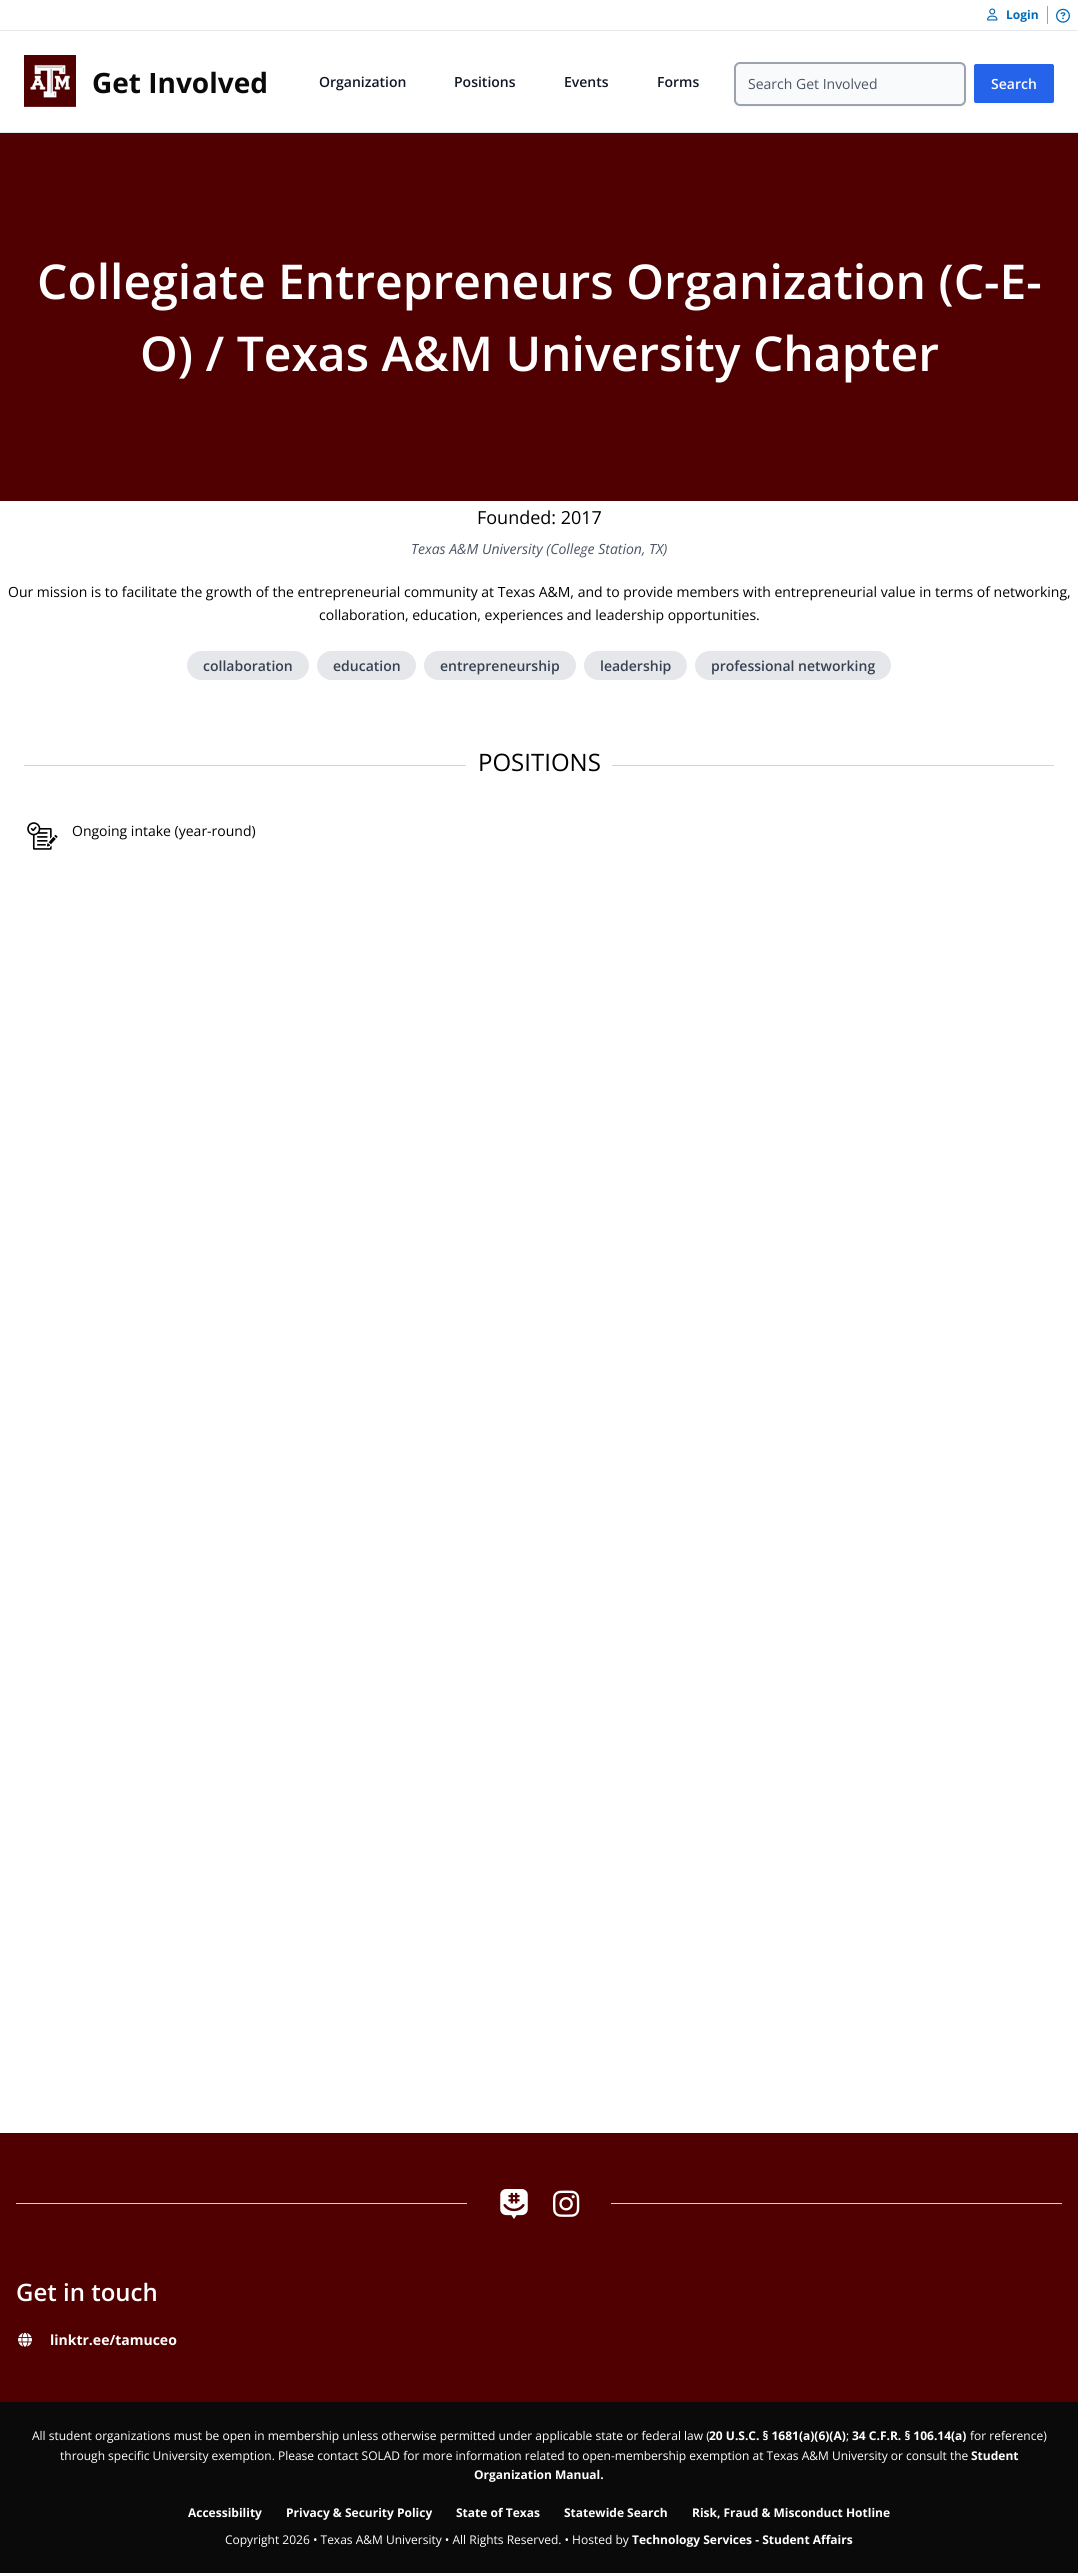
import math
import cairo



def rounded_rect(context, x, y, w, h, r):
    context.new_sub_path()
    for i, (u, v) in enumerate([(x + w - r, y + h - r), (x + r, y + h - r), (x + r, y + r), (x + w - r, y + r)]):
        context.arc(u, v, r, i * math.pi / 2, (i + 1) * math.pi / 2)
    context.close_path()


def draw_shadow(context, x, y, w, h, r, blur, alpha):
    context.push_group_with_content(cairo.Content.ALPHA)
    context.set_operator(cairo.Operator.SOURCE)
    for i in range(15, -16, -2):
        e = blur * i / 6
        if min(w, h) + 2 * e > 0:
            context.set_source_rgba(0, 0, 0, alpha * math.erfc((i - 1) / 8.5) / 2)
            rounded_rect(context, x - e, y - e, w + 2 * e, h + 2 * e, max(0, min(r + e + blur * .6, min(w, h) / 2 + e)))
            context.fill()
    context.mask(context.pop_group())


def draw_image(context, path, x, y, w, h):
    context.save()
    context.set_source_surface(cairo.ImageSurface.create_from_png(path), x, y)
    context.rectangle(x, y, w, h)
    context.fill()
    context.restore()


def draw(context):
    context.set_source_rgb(1, 1, 1)
    context.paint()
    context.set_source_rgb(229 / 255, 231 / 255, 235 / 255)
    context.rectangle(0, 30, 1078, 1)
    context.fill()
    draw_image(context, "images/1.png", 987, 8, 11, 13)
    context.set_source_rgb(156 / 255, 163 / 255, 175 / 255)
    context.rectangle(1047, 6, 1, 18)
    context.fill()
    draw_image(context, "images/2.png", 1056, 8, 14, 15)
    context.set_source_rgb(229 / 255, 231 / 255, 235 / 255)
    context.rectangle(0, 132, 1078, 1)
    context.fill()
    draw_image(context, "images/3.png", 24, 55, 52, 52)
    context.set_source_rgb(0, 0, 0)
    draw_shadow(context, 734, 63, 232, 44, 6, 1, 0.05)
    context.set_source_rgb(249 / 255, 250 / 255, 251 / 255)
    rounded_rect(context, 735, 63, 230, 42, 5)
    context.fill_preserve()
    context.set_source_rgb(156 / 255, 163 / 255, 175 / 255)
    context.stroke()
    context.set_source_rgb(0, 0, 0)
    draw_shadow(context, 974, 65, 80, 39, 2, 1, 0.05)
    context.set_source_rgb(37 / 255, 99 / 255, 235 / 255)
    rounded_rect(context, 974, 64, 80, 39, 2)
    context.fill()
    context.set_source_rgb(80 / 255, 0, 0)
    context.rectangle(0, 133, 1078, 368)
    context.fill()
    context.set_source_rgb(229 / 255, 231 / 255, 235 / 255)
    rounded_rect(context, 187, 651, 122, 29, 14.5)
    context.fill()
    rounded_rect(context, 317, 651, 99, 29, 14.5)
    context.fill()
    rounded_rect(context, 424, 651, 152, 29, 14.5)
    context.fill()
    rounded_rect(context, 584, 651, 103, 29, 14.5)
    context.fill()
    rounded_rect(context, 695, 651, 196, 29, 14.5)
    context.fill()
    context.set_source_rgb(209 / 255, 213 / 255, 219 / 255)
    context.rectangle(24, 765, 1030, 1)
    context.fill()
    context.set_source_rgb(1, 1, 1)
    context.rectangle(466, 765, 146, 1)
    context.fill()
    draw_image(context, "images/4.png", 27, 822, 31, 28)
    context.set_source_rgb(80 / 255, 0, 0)
    context.rectangle(0, 2133, 1078, 269)
    context.fill()
    context.set_source_rgb(209 / 255, 213 / 255, 219 / 255)
    context.rectangle(16, 2203, 1046, 1)
    context.fill()
    context.set_source_rgb(80 / 255, 0, 0)
    context.rectangle(467, 2203, 144, 1)
    context.fill()
    draw_image(context, "images/5.png", 500, 2189, 28, 30)
    draw_image(context, "images/6.png", 553, 2190, 27, 27)
    draw_image(context, "images/7.png", 18, 2332, 14, 15)
    context.set_source_rgb(10 / 255, 10 / 255, 10 / 255)
    context.rectangle(0, 2402, 1078, 171)
    context.fill()
    context.select_font_face("Open Sans", cairo.FontSlant.NORMAL, cairo.FontWeight.BOLD)
    context.set_font_size(12)
    context.set_source_rgb(0, 107 / 255, 184 / 255)
    context.move_to(1006, 19)
    context.show_text("Login")
    context.set_font_size(28)
    context.set_source_rgb(10 / 255, 10 / 255, 10 / 255)
    context.move_to(92, 93)
    context.show_text("Get Involved")
    context.select_font_face("Open Sans SemiBold")
    context.set_font_size(14)
    context.set_source_rgb(17 / 255, 24 / 255, 39 / 255)
    context.move_to(319, 87)
    context.show_text("Organization")
    context.move_to(454, 87)
    context.show_text("Positions")
    context.move_to(564, 87)
    context.show_text("Events")
    context.move_to(657, 87)
    context.show_text("Forms")
    context.select_font_face("Open Sans")
    context.set_source_rgb(75 / 255, 85 / 255, 99 / 255)
    context.move_to(748, 89)
    context.show_text("Search Get Involved")
    context.select_font_face("Open Sans SemiBold")
    context.set_source_rgb(1, 1, 1)
    context.move_to(991, 89)
    context.show_text("Search")
    context.set_font_size(48)
    context.move_to(37, 299)
    context.show_text("Collegiate Entrepreneurs Organization (C-E-")
    context.move_to(140, 371)
    context.show_text("O) / Texas A&M University Chapter")
    context.select_font_face("Open Sans")
    context.set_font_size(18)
    context.set_source_rgb(0, 0, 0)
    context.move_to(477, 524)
    context.show_text("Founded: 2017")
    context.select_font_face("Open Sans", cairo.FontSlant.ITALIC)
    context.set_font_size(14)
    context.set_source_rgb(75 / 255, 85 / 255, 99 / 255)
    context.move_to(411, 554)
    context.show_text("Texas A&M University (College Station, TX)")
    context.select_font_face("Open Sans")
    context.set_source_rgb(0, 0, 0)
    context.move_to(8, 597)
    context.show_text("Our mission is to facilitate the growth of the entrepreneurial community at Texas A&M, and to provide members with entrepreneurial value in terms of networking,")
    context.move_to(319, 620)
    context.show_text("collaboration, education, experiences and leadership opportunities.")
    context.select_font_face("Open Sans SemiBold")
    context.set_source_rgb(55 / 255, 65 / 255, 81 / 255)
    context.move_to(203, 671)
    context.show_text("collaboration")
    context.move_to(333, 671)
    context.show_text("education")
    context.move_to(440, 671)
    context.show_text("entrepreneurship")
    context.move_to(600, 671)
    context.show_text("leadership")
    context.move_to(711, 671)
    context.show_text("professional networking")
    context.select_font_face("Open Sans")
    context.set_font_size(24)
    context.set_source_rgb(0, 0, 0)
    context.move_to(478, 771)
    context.show_text("POSITIONS")
    context.set_font_size(14)
    context.move_to(72, 836)
    context.show_text("Ongoing intake (year-round)")
    context.select_font_face("Open Sans SemiBold")
    context.set_font_size(24)
    context.set_source_rgb(1, 1, 1)
    context.move_to(16, 2301)
    context.show_text("Get in touch")
    context.select_font_face("Open Sans", cairo.FontSlant.NORMAL, cairo.FontWeight.BOLD)
    context.set_font_size(14)
    context.move_to(50, 2345)
    context.show_text("linktr.ee/tamuceo")
    context.select_font_face("Open Sans")
    context.set_font_size(12)
    context.move_to(32, 2440)
    context.show_text("All student organizations must be open in membership unless otherwise permitted under applicable state or federal law (")
    context.select_font_face("Open Sans", cairo.FontSlant.NORMAL, cairo.FontWeight.BOLD)
    context.move_to(709, 2440)
    context.show_text("20 U.S.C. § 1681(a)(6)(A)")
    context.select_font_face("Open Sans")
    context.move_to(846, 2440)
    context.show_text(";")
    context.select_font_face("Open Sans", cairo.FontSlant.NORMAL, cairo.FontWeight.BOLD)
    context.move_to(852, 2440)
    context.show_text("34 C.F.R. § 106.14(a)")
    context.select_font_face("Open Sans")
    context.move_to(970, 2440)
    context.show_text("for reference)")
    context.move_to(60, 2460)
    context.show_text("through specific University exemption. Please contact SOLAD for more information related to open-membership exemption at Texas A&M University or consult the")
    context.select_font_face("Open Sans", cairo.FontSlant.NORMAL, cairo.FontWeight.BOLD)
    context.move_to(971, 2460)
    context.show_text("Student")
    context.move_to(474, 2479)
    context.show_text("Organization Manual.")
    context.move_to(188, 2517)
    context.show_text("Accessibility")
    context.move_to(286, 2517)
    context.show_text("Privacy & Security Policy")
    context.move_to(456, 2517)
    context.show_text("State of Texas")
    context.move_to(564, 2517)
    context.show_text("Statewide Search")
    context.move_to(692, 2517)
    context.show_text("Risk, Fraud & Misconduct Hotline")
    context.select_font_face("Open Sans")
    context.move_to(225, 2544)
    context.show_text("Copyright 2026 • Texas A&M University • All Rights Reserved. • Hosted by")
    context.select_font_face("Open Sans", cairo.FontSlant.NORMAL, cairo.FontWeight.BOLD)
    context.move_to(632, 2544)
    context.show_text("Technology Services - Student Affairs")


surface = cairo.ImageSurface(cairo.Format.RGB24, 1078, 2573)
context = cairo.Context(surface)
options = cairo.FontOptions()
options.set_hint_metrics(cairo.HintMetrics.OFF)
options.set_hint_style(cairo.HintStyle.NONE)
context.set_font_options(options)
context.set_miter_limit(4)
draw(context)
surface.write_to_png("out.png")
